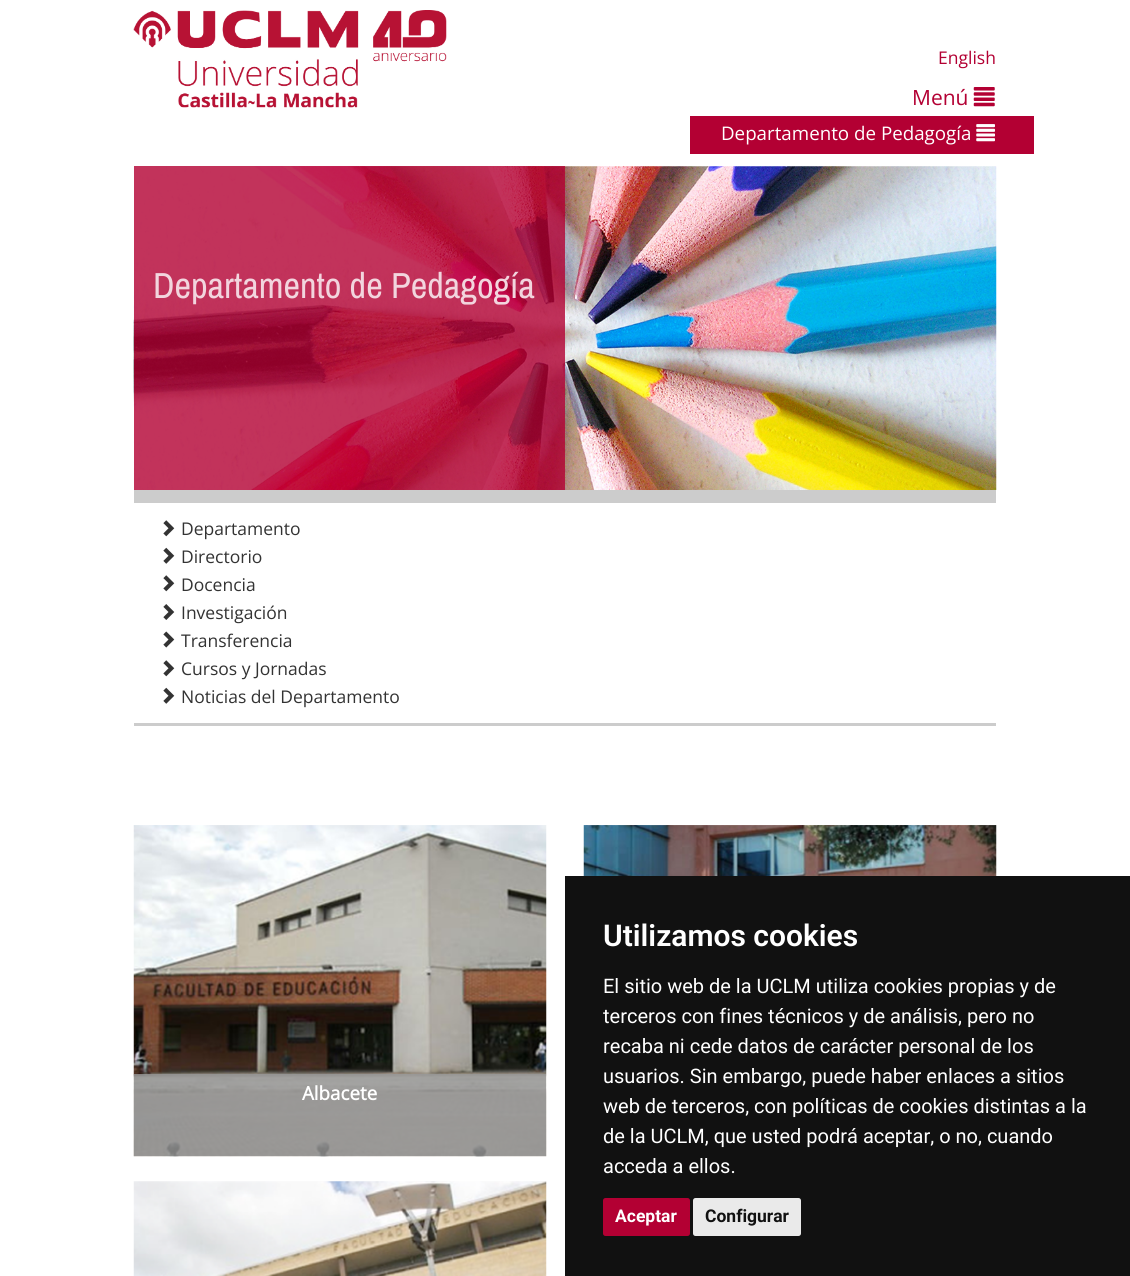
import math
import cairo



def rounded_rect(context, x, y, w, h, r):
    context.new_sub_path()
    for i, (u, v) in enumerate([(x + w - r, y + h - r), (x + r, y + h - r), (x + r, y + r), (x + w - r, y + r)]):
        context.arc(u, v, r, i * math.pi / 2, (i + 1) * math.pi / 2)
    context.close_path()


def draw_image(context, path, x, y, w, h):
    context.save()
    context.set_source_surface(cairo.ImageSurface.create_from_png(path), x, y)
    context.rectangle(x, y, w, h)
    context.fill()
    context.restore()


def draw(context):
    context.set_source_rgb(1, 1, 1)
    context.paint()
    draw_image(context, "images/1.png", 133, 10, 314, 98)
    draw_image(context, "images/2.png", 973, 87, 22, 20)
    context.set_source_rgb(179 / 255, 0, 51 / 255)
    context.rectangle(690, 116, 344, 38)
    context.fill()
    draw_image(context, "images/3.png", 976, 124, 19, 18)
    draw_image(context, "images/4.png", 133, 166, 864, 324)
    context.set_source_rgba(179 / 255, 0, 51 / 255, 0.8)
    context.rectangle(134, 166, 431, 324)
    context.fill()
    context.set_source_rgb(204 / 255, 204 / 255, 204 / 255)
    context.rectangle(134, 490, 862, 13)
    context.fill()
    context.rectangle(134, 723, 862, 3)
    context.fill()
    draw_image(context, "images/5.png", 163, 520, 12, 17)
    draw_image(context, "images/6.png", 163, 547, 12, 17)
    draw_image(context, "images/5.png", 163, 575, 12, 17)
    draw_image(context, "images/7.png", 163, 604, 12, 16)
    draw_image(context, "images/8.png", 163, 631, 12, 17)
    draw_image(context, "images/5.png", 163, 660, 12, 17)
    draw_image(context, "images/6.png", 163, 687, 12, 17)
    draw_image(context, "images/9.png", 583, 825, 414, 51)
    draw_image(context, "images/10.png", 133, 825, 414, 332)
    context.set_source_rgba(153 / 255, 153 / 255, 153 / 255, 0.8)
    context.rectangle(134, 1074, 412, 82)
    context.fill()
    draw_image(context, "images/11.png", 133, 1181, 414, 95)
    context.set_source_rgb(17 / 255, 17 / 255, 17 / 255)
    context.rectangle(565, 876, 565, 400)
    context.fill()
    context.set_source_rgb(179 / 255, 0, 51 / 255)
    rounded_rect(context, 603, 1198, 87, 38, 2.5)
    context.fill()
    context.set_source_rgb(234 / 255, 234 / 255, 234 / 255)
    rounded_rect(context, 693, 1198, 108, 38, 2.5)
    context.fill()
    context.select_font_face("Open Sans")
    context.set_font_size(17.5)
    context.set_source_rgb(179 / 255, 0, 51 / 255)
    context.move_to(938, 64)
    context.show_text("English")
    context.set_font_size(21)
    context.move_to(912, 105)
    context.show_text("Menú")
    context.set_font_size(18.75)
    context.set_source_rgb(1, 1, 1)
    context.move_to(721, 140)
    context.show_text("Departamento de Pedagogía")
    context.select_font_face("Archivo Narrow")
    context.set_font_size(36.25)
    context.set_source_rgb(242 / 255, 213 / 255, 222 / 255)
    context.move_to(153, 298)
    context.show_text("Departamento de Pedagogía")
    context.select_font_face("Open Sans")
    context.set_font_size(17.5)
    context.set_source_rgb(51 / 255, 51 / 255, 51 / 255)
    context.move_to(181, 535)
    context.show_text("Departamento")
    context.move_to(181, 563)
    context.show_text("Directorio")
    context.move_to(181, 591)
    context.show_text("Docencia")
    context.move_to(181, 619)
    context.show_text("Investigación")
    context.move_to(181, 647)
    context.show_text("Transferencia")
    context.move_to(181, 675)
    context.show_text("Cursos y Jornadas")
    context.move_to(181, 703)
    context.show_text("Noticias del Departamento")
    context.select_font_face("Open Sans", cairo.FontSlant.NORMAL, cairo.FontWeight.BOLD)
    context.set_font_size(18.75)
    context.set_source_rgb(1, 1, 1)
    context.move_to(302, 1100)
    context.show_text("Albacete")
    context.select_font_face("Roboto SemiBold")
    context.set_font_size(30)
    context.move_to(603, 946)
    context.show_text("Utilizamos cookies")
    context.select_font_face("Roboto")
    context.set_font_size(20)
    context.move_to(603, 993)
    context.show_text("El sitio web de la UCLM utiliza cookies propias y de")
    context.move_to(603, 1023)
    context.show_text("terceros con fines técnicos y de análisis, pero no")
    context.move_to(603, 1053)
    context.show_text("recaba ni cede datos de carácter personal de los")
    context.move_to(603, 1083)
    context.show_text("usuarios. Sin embargo, puede haber enlaces a sitios")
    context.move_to(603, 1113)
    context.show_text("web de terceros, con políticas de cookies distintas a la")
    context.move_to(603, 1143)
    context.show_text("de la UCLM, que usted podrá aceptar, o no, cuando")
    context.move_to(603, 1173)
    context.show_text("acceda a ellos.")
    context.select_font_face("Roboto", cairo.FontSlant.NORMAL, cairo.FontWeight.BOLD)
    context.set_font_size(17.5)
    context.move_to(615, 1222)
    context.show_text("Aceptar")
    context.set_source_rgb(17 / 255, 17 / 255, 17 / 255)
    context.move_to(705, 1222)
    context.show_text("Configurar")


surface = cairo.ImageSurface(cairo.Format.RGB24, 1130, 1276)
context = cairo.Context(surface)
options = cairo.FontOptions()
options.set_hint_metrics(cairo.HintMetrics.OFF)
options.set_hint_style(cairo.HintStyle.NONE)
context.set_font_options(options)
context.set_miter_limit(4)
draw(context)
surface.write_to_png("out.png")
